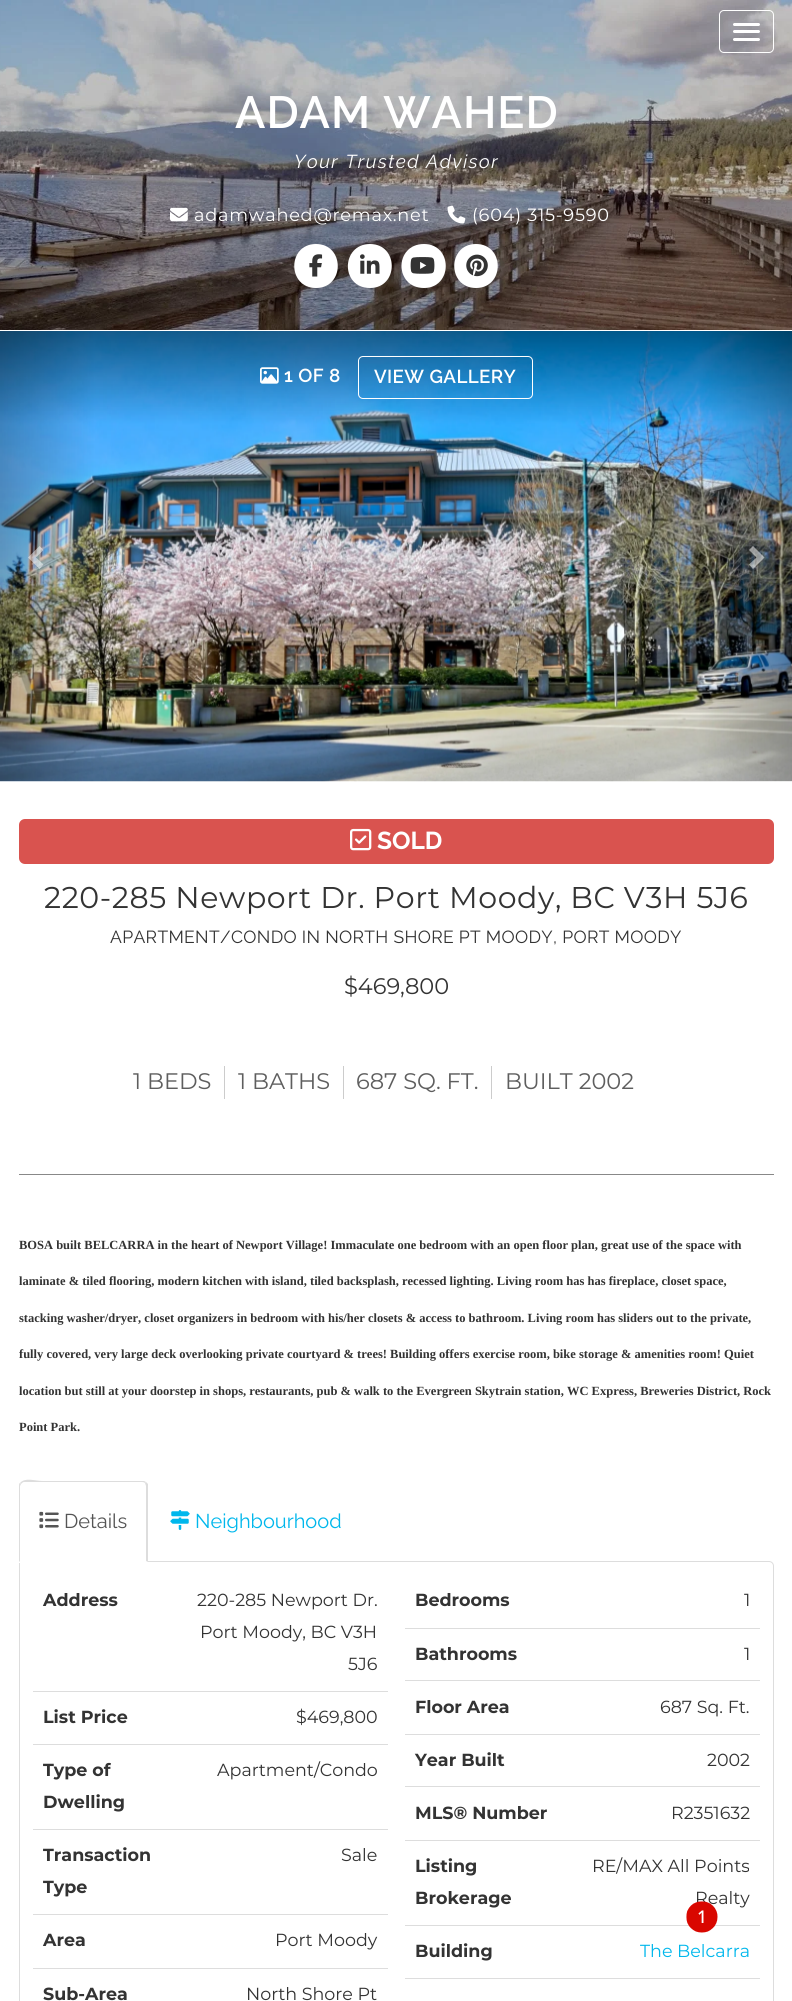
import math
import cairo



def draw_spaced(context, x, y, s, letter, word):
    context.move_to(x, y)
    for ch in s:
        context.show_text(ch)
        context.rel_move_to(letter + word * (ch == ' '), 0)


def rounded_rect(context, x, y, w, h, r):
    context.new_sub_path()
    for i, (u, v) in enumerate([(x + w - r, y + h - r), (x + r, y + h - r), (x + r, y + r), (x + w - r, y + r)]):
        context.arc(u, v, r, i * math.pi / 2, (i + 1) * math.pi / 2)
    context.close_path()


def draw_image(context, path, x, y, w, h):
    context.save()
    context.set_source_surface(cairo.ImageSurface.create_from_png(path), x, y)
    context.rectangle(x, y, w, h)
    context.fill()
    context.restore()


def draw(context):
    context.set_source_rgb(1, 1, 1)
    context.paint()
    draw_image(context, "images/1.png", 0, 0, 792, 330)
    rounded_rect(context, 719.5, 10.5, 54, 42, 4.5)
    context.set_source_rgb(1, 1, 1)
    context.set_line_width(1)
    context.stroke()
    rounded_rect(context, 733, 23, 27, 3, 1.5)
    context.fill()
    rounded_rect(context, 733, 30, 27, 3, 1.5)
    context.fill()
    rounded_rect(context, 733, 38, 27, 3, 1.5)
    context.fill()
    draw_image(context, "images/2.png", 170, 207, 18, 15)
    draw_image(context, "images/3.png", 447, 205, 19, 19)
    context.new_path()
    context.move_to(316, 288)
    context.curve_to(345, 288, 345, 244, 316, 244)
    context.curve_to(287, 244, 287, 288, 316, 288)
    context.close_path()
    context.fill()
    draw_image(context, "images/4.png", 309, 254, 14, 23)
    context.new_path()
    context.move_to(370, 288)
    context.curve_to(399, 288, 399, 244, 370, 244)
    context.curve_to(341, 244, 340, 288, 370, 288)
    context.close_path()
    context.fill()
    draw_image(context, "images/5.png", 360, 254, 20, 20)
    context.new_path()
    context.move_to(424, 288)
    context.curve_to(453, 288, 453, 244, 424, 244)
    context.curve_to(394, 244, 394, 288, 424, 288)
    context.close_path()
    context.fill()
    draw_image(context, "images/6.png", 410, 257, 25, 17)
    context.new_path()
    context.move_to(476, 288)
    context.curve_to(505, 288, 505, 244, 476, 244)
    context.curve_to(447, 244, 447, 288, 476, 288)
    context.close_path()
    context.fill()
    draw_image(context, "images/7.png", 466, 254, 22, 23)
    draw_image(context, "images/8.png", 0, 331, 792, 451)
    draw_image(context, "images/9.png", 260, 367, 19, 17)
    rounded_rect(context, 358.5, 356.5, 174, 42, 4.5)
    context.stroke()
    context.set_source_rgba(1, 1, 1, 0.5)
    context.new_path()
    context.move_to(43.5, 550)
    context.line_to(36, 557.5)
    context.line_to(43.5, 564.5)
    context.line_to(39.5, 569)
    context.line_to(28, 557.5)
    context.line_to(39.5, 546)
    context.close_path()
    context.fill()
    context.new_path()
    context.move_to(764.5, 557.5)
    context.line_to(753, 569)
    context.line_to(749, 564.5)
    context.line_to(756.5, 557.5)
    context.line_to(749, 550)
    context.line_to(753, 546)
    context.close_path()
    context.fill()
    context.set_source_rgb(217 / 255, 83 / 255, 79 / 255)
    rounded_rect(context, 19, 819, 755, 45, 6)
    context.fill()
    draw_image(context, "images/10.png", 350, 828, 22, 23)
    context.set_source_rgb(136 / 255, 136 / 255, 136 / 255)
    context.rectangle(19, 1174, 755, 1)
    context.fill()
    context.set_source_rgb(204 / 255, 204 / 255, 204 / 255)
    context.rectangle(224, 1066, 1, 33)
    context.fill()
    context.rectangle(343, 1066, 1, 33)
    context.fill()
    context.rectangle(491, 1066, 1, 33)
    context.fill()
    context.new_path()
    context.move_to(19.5, 1561.5)
    context.line_to(769, 1561.5)
    context.curve_to(771.5, 1561.5, 773.5, 1563.5, 773.5, 1566)
    context.line_to(773.5, 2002)
    context.curve_to(773.5, 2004.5, 771.5, 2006.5, 769, 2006.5)
    context.line_to(24, 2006.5)
    context.curve_to(21.5, 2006.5, 19.5, 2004.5, 19.5, 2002)
    context.close_path()
    context.set_source_rgb(221 / 255, 221 / 255, 221 / 255)
    context.stroke()
    context.set_source_rgb(1, 1, 1)
    context.new_path()
    context.move_to(24, 1481)
    context.line_to(143, 1481)
    context.curve_to(146, 1481, 148, 1483, 148, 1486)
    context.line_to(148, 1563)
    context.line_to(19, 1563)
    context.line_to(19, 1486)
    context.curve_to(19, 1483, 21, 1481, 24, 1481)
    context.close_path()
    context.fill()
    context.set_source_rgb(221 / 255, 221 / 255, 221 / 255)
    context.new_path()
    context.move_to(24, 1482)
    context.curve_to(23, 1482, 22, 1483, 21, 1484)
    context.line_to(20, 1483)
    context.curve_to(25, 1477, 35, 1481, 43, 1481)
    context.line_to(144, 1481)
    context.line_to(146, 1482)
    context.line_to(145, 1483)
    context.curve_to(145, 1483, 144, 1482, 142, 1482)
    context.close_path()
    context.fill()
    context.new_path()
    context.move_to(148, 1562)
    context.line_to(146, 1561)
    context.line_to(146, 1486)
    context.line_to(145, 1483)
    context.line_to(146, 1482)
    context.line_to(148, 1484)
    context.close_path()
    context.fill()
    context.new_path()
    context.move_to(19, 1562)
    context.line_to(19, 1486)
    context.curve_to(19, 1485, 19, 1483, 20, 1483)
    context.line_to(21, 1484)
    context.line_to(20, 1486)
    context.line_to(20, 1561)
    context.close_path()
    context.fill()
    draw_image(context, "images/11.png", 39, 1511, 20, 18)
    draw_image(context, "images/12.png", 170, 1510, 20, 20)
    context.rectangle(33, 1691, 355, 1)
    context.fill()
    context.rectangle(405, 1628, 355, 1)
    context.fill()
    context.rectangle(405, 1680, 355, 1)
    context.fill()
    context.rectangle(33, 1744, 355, 1)
    context.fill()
    context.rectangle(405, 1734, 355, 1)
    context.fill()
    context.rectangle(405, 1786, 355, 1)
    context.fill()
    context.rectangle(33, 1829, 355, 1)
    context.fill()
    context.rectangle(405, 1840, 355, 1)
    context.fill()
    context.rectangle(33, 1914, 355, 1)
    context.fill()
    context.rectangle(405, 1925, 355, 1)
    context.fill()
    context.rectangle(33, 1968, 355, 1)
    context.fill()
    context.rectangle(405, 1978, 355, 1)
    context.fill()
    context.select_font_face("Raleway SemiBold")
    context.set_font_size(45)
    context.set_source_rgb(1, 1, 1)
    draw_spaced(context, 235, 128, "ADAM WAHED", 1, 0)
    context.select_font_face("Raleway", cairo.FontSlant.ITALIC)
    context.set_font_size(18.75)
    draw_spaced(context, 294, 168, "Your Trusted Advisor", 1.5, 0)
    context.select_font_face("Montserrat")
    context.set_font_size(17.75)
    draw_spaced(context, 194, 221, "adamwahed@remax.net", 0.75, 0)
    draw_spaced(context, 472, 221, "(604) 315-9590", 0.75, 0)
    context.select_font_face("Raleway SemiBold")
    context.set_font_size(18.75)
    draw_spaced(context, 284, 382, "1 OF 8", 0.4, 0)
    draw_spaced(context, 374, 383, "VIEW GALLERY", 0.4, 0)
    context.select_font_face("Raleway", cairo.FontSlant.NORMAL, cairo.FontWeight.BOLD)
    context.set_font_size(24.5)
    context.move_to(377, 849)
    context.show_text("SOLD")
    context.select_font_face("Montserrat")
    context.set_font_size(30)
    context.set_source_rgb(51 / 255, 51 / 255, 51 / 255)
    draw_spaced(context, 44, 908, "220-285 Newport Dr. Port Moody, BC V3H 5J6", 0.6, 0)
    context.select_font_face("Raleway")
    context.set_font_size(17.5)
    draw_spaced(context, 110, 943, "APARTMENT/CONDO IN NORTH SHORE PT MOODY, PORT MOODY", 0.35, 0)
    context.select_font_face("Montserrat")
    context.set_font_size(22.5)
    context.move_to(344, 994)
    context.show_text("$469,800")
    context.set_source_rgb(94 / 255, 94 / 255, 94 / 255)
    context.move_to(133, 1089)
    context.show_text("1 BEDS")
    context.move_to(238, 1089)
    context.show_text("1 BATHS")
    context.move_to(356, 1089)
    context.show_text("687 SQ. FT.")
    context.move_to(505, 1089)
    context.show_text("BUILT 2002")
    context.select_font_face("Liberation Serif", cairo.FontSlant.NORMAL, cairo.FontWeight.BOLD)
    context.set_font_size(12.5)
    context.set_source_rgb(51 / 255, 51 / 255, 51 / 255)
    context.move_to(19, 1249)
    context.show_text("BOSA built BELCARRA in the heart of Newport Village! Immaculate one bedroom with an open floor plan, great use of the space with")
    context.move_to(19, 1285)
    context.show_text("laminate & tiled flooring, modern kitchen with island, tiled backsplash, recessed lighting. Living room has has fireplace, closet space,")
    context.move_to(19, 1322)
    context.show_text("stacking washer/dryer, closet organizers in bedroom with his/her closets & access to bathroom. Living room has sliders out to the private,")
    context.move_to(19, 1358)
    context.show_text("fully covered, very large deck overlooking private courtyard & trees! Building offers exercise room, bike storage & amenities room! Quiet")
    context.move_to(19, 1395)
    context.show_text("location but still at your doorstep in shops, restaurants, pub & walk to the Evergreen Skytrain station, WC Express, Breweries District, Rock")
    context.move_to(19, 1431)
    context.show_text("Point Park.")
    context.select_font_face("Raleway")
    context.set_font_size(20)
    context.set_source_rgb(85 / 255, 85 / 255, 85 / 255)
    context.move_to(64, 1528)
    context.show_text("Details")
    context.set_source_rgb(0, 183 / 255, 236 / 255)
    context.move_to(195, 1528)
    context.show_text("Neighbourhood")
    context.select_font_face("Montserrat", cairo.FontSlant.NORMAL, cairo.FontWeight.BOLD)
    context.set_font_size(17.5)
    context.set_source_rgb(51 / 255, 51 / 255, 51 / 255)
    context.move_to(43, 1606)
    context.show_text("Address")
    context.select_font_face("Montserrat")
    context.move_to(197, 1606)
    context.show_text("220-285 Newport Dr.")
    context.move_to(200, 1638)
    context.show_text("Port Moody, BC V3H")
    context.move_to(348, 1670)
    context.show_text("5J6")
    context.select_font_face("Montserrat", cairo.FontSlant.NORMAL, cairo.FontWeight.BOLD)
    context.move_to(415, 1606)
    context.show_text("Bedrooms")
    context.select_font_face("Montserrat")
    context.move_to(744, 1606)
    context.show_text("1")
    context.select_font_face("Montserrat", cairo.FontSlant.NORMAL, cairo.FontWeight.BOLD)
    context.move_to(415, 1660)
    context.show_text("Bathrooms")
    context.select_font_face("Montserrat")
    context.move_to(744, 1660)
    context.show_text("1")
    context.select_font_face("Montserrat", cairo.FontSlant.NORMAL, cairo.FontWeight.BOLD)
    context.move_to(43, 1723)
    context.show_text("List Price")
    context.select_font_face("Montserrat")
    context.move_to(296, 1723)
    context.show_text("$469,800")
    context.select_font_face("Montserrat", cairo.FontSlant.NORMAL, cairo.FontWeight.BOLD)
    context.move_to(415, 1713)
    context.show_text("Floor Area")
    context.select_font_face("Montserrat")
    context.move_to(660, 1713)
    context.show_text("687 Sq. Ft.")
    context.select_font_face("Montserrat", cairo.FontSlant.NORMAL, cairo.FontWeight.BOLD)
    context.move_to(415, 1766)
    context.show_text("Year Built")
    context.select_font_face("Montserrat")
    context.move_to(707, 1766)
    context.show_text("2002")
    context.select_font_face("Montserrat", cairo.FontSlant.NORMAL, cairo.FontWeight.BOLD)
    context.move_to(43, 1776)
    context.show_text("Type of")
    context.move_to(43, 1808)
    context.show_text("Dwelling")
    context.select_font_face("Montserrat")
    context.move_to(217, 1776)
    context.show_text("Apartment/Condo")
    context.select_font_face("Montserrat", cairo.FontSlant.NORMAL, cairo.FontWeight.BOLD)
    context.move_to(415, 1819)
    context.show_text("MLS® Number")
    context.select_font_face("Montserrat")
    context.move_to(671, 1819)
    context.show_text("R2351632")
    context.select_font_face("Montserrat", cairo.FontSlant.NORMAL, cairo.FontWeight.BOLD)
    context.move_to(43, 1861)
    context.show_text("Transaction")
    context.move_to(43, 1893)
    context.show_text("Type")
    context.select_font_face("Montserrat")
    context.move_to(341, 1861)
    context.show_text("Sale")
    context.select_font_face("Montserrat", cairo.FontSlant.NORMAL, cairo.FontWeight.BOLD)
    context.move_to(415, 1872)
    context.show_text("Listing")
    context.move_to(415, 1904)
    context.show_text("Brokerage")
    context.select_font_face("Montserrat")
    context.move_to(592, 1872)
    context.show_text("RE/MAX All Points")
    context.move_to(695, 1904)
    context.show_text("Realty")
    context.select_font_face("Montserrat", cairo.FontSlant.NORMAL, cairo.FontWeight.BOLD)
    context.move_to(43, 1946)
    context.show_text("Area")
    context.select_font_face("Montserrat")
    context.move_to(275, 1946)
    context.show_text("Port Moody")
    context.select_font_face("Montserrat", cairo.FontSlant.NORMAL, cairo.FontWeight.BOLD)
    context.move_to(415, 1957)
    context.show_text("Building")
    context.select_font_face("Montserrat")
    context.set_source_rgb(0, 183 / 255, 236 / 255)
    context.move_to(640, 1957)
    context.show_text("The Belcarra")
    context.select_font_face("Montserrat", cairo.FontSlant.NORMAL, cairo.FontWeight.BOLD)
    context.set_source_rgb(51 / 255, 51 / 255, 51 / 255)
    context.move_to(43, 2000)
    context.show_text("Sub-Area")
    context.select_font_face("Montserrat")
    context.move_to(246, 2000)
    context.show_text("North Shore Pt")
    draw_image(context, "images/13.png", 686, 1901, 32, 32)


surface = cairo.ImageSurface(cairo.Format.RGB24, 792, 2001)
context = cairo.Context(surface)
options = cairo.FontOptions()
options.set_hint_metrics(cairo.HintMetrics.OFF)
options.set_hint_style(cairo.HintStyle.NONE)
context.set_font_options(options)
context.set_miter_limit(4)
draw(context)
surface.write_to_png("out.png")
